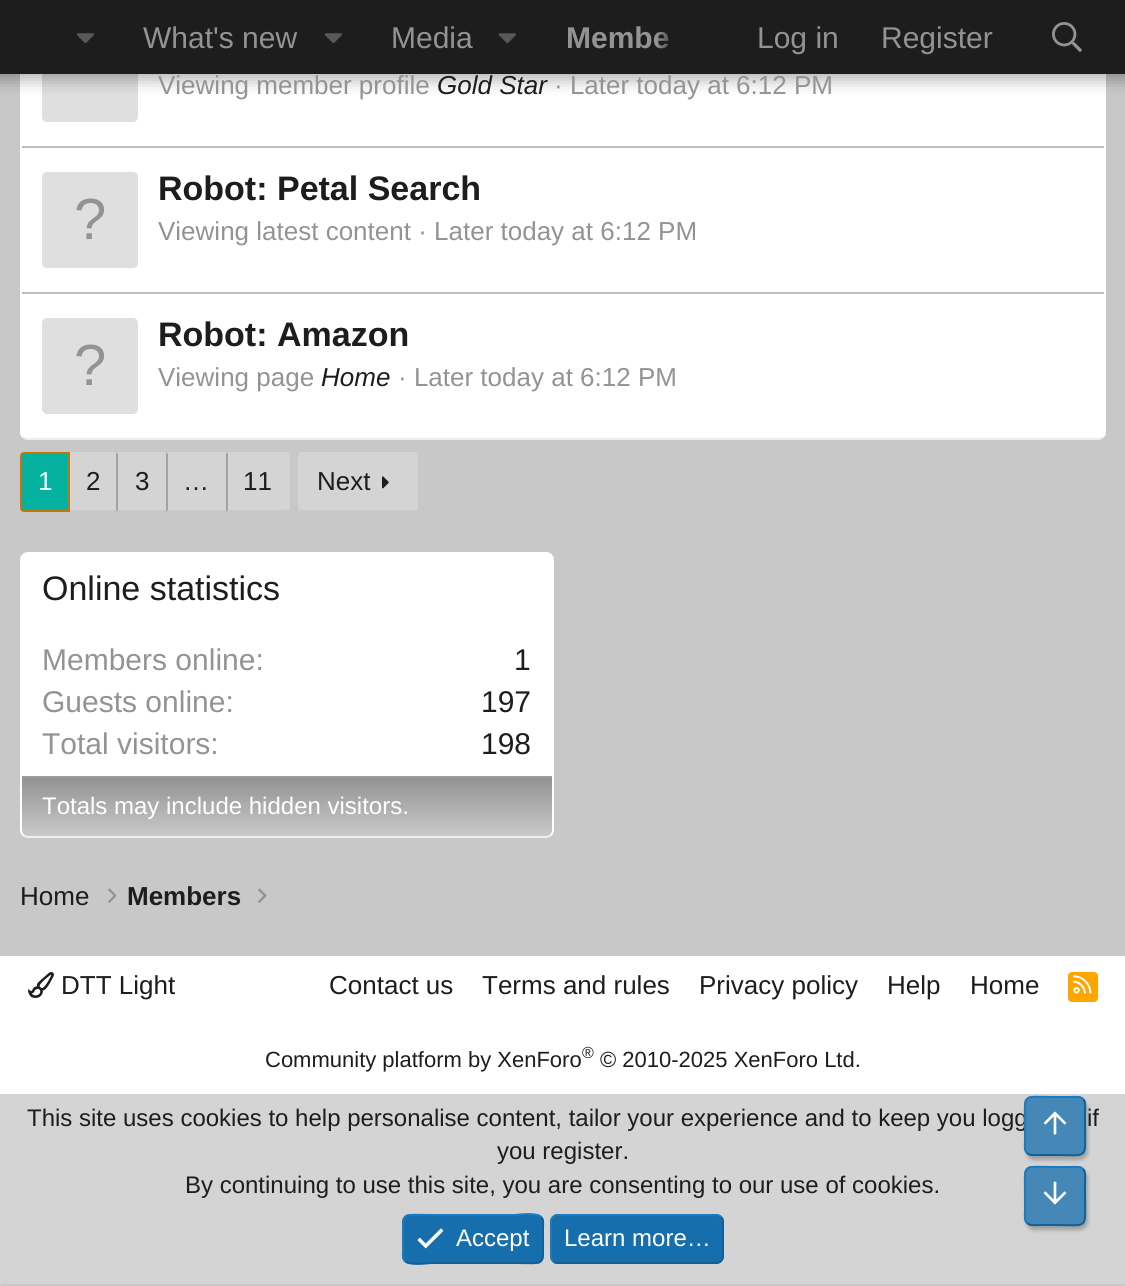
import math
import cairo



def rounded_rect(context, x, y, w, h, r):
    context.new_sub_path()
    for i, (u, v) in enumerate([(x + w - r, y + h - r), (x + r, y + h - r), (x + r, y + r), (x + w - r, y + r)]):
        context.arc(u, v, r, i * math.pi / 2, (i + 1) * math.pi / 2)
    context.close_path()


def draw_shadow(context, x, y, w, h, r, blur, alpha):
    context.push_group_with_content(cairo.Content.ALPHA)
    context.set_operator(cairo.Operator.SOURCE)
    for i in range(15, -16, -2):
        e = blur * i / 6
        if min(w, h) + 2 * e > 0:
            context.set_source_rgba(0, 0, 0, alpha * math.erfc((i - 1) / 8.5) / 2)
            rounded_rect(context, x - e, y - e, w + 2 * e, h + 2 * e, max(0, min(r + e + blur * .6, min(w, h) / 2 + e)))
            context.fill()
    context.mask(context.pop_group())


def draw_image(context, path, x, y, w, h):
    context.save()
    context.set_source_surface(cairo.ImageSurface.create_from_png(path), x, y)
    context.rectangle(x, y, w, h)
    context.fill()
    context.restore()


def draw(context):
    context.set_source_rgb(200 / 255, 200 / 255, 200 / 255)
    context.paint()
    context.set_source_rgb(1, 1, 1)
    rounded_rect(context, 20, -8, 1086, 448, 8)
    context.fill()
    context.set_source_rgb(223 / 255, 223 / 255, 223 / 255)
    rounded_rect(context, 42, 26, 96, 96, 5)
    context.fill()
    context.set_source_rgb(0, 0, 0)
    draw_shadow(context, -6, -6, 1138, 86, 0, 8, 0.3)
    context.set_source_rgb(29 / 255, 29 / 255, 29 / 255)
    context.rectangle(53, 0, 1072, 74)
    context.fill()
    draw_image(context, "images/1.png", 76, 33, 18, 11)
    gradient = cairo.LinearGradient(0, 37, 80, 37)
    gradient.add_color_stop_rgba(0.66, 29 / 255, 29 / 255, 29 / 255, 1)
    gradient.add_color_stop_rgba(1, 29 / 255, 29 / 255, 29 / 255, 0)
    context.set_source(gradient)
    context.rectangle(0, 0, 79, 74)
    context.fill()
    draw_image(context, "images/1.png", 324, 33, 18, 11)
    draw_image(context, "images/1.png", 498, 33, 18, 11)
    draw_image(context, "images/2.png", 1052, 22, 30, 30)
    context.new_path()
    context.move_to(1103, 437)
    context.curve_to(1101.5, 438.5, 1100, 439, 1098, 439)
    context.line_to(28, 439)
    context.curve_to(26, 439, 24.5, 438.5, 23, 437)
    context.set_source_rgba(90 / 255, 90 / 255, 90 / 255, 0.1)
    context.stroke()
    context.set_source_rgb(189 / 255, 189 / 255, 189 / 255)
    context.rectangle(22, 146, 1082, 2)
    context.fill()
    context.set_source_rgb(223 / 255, 223 / 255, 223 / 255)
    rounded_rect(context, 42, 172, 96, 96, 5)
    context.fill()
    context.set_source_rgb(189 / 255, 189 / 255, 189 / 255)
    context.rectangle(22, 292, 1082, 2)
    context.fill()
    context.set_source_rgb(223 / 255, 223 / 255, 223 / 255)
    rounded_rect(context, 42, 318, 96, 96, 5)
    context.fill()
    context.set_source_rgb(5 / 255, 178 / 255, 160 / 255)
    context.new_path()
    context.move_to(24, 453)
    context.line_to(69, 453)
    context.line_to(69, 511)
    context.line_to(24, 511)
    context.curve_to(22.5, 511, 21, 509.5, 21, 508)
    context.line_to(21, 456)
    context.curve_to(21, 454.5, 22.5, 453, 24, 453)
    context.close_path()
    context.fill_preserve()
    context.set_source_rgb(194 / 255, 117 / 255, 10 / 255)
    context.stroke()
    context.set_source_rgb(212 / 255, 212 / 255, 212 / 255)
    context.rectangle(70, 452, 46, 58)
    context.fill()
    context.rectangle(116, 452, 110, 60)
    context.fill()
    context.set_source_rgb(200 / 255, 200 / 255, 200 / 255)
    context.new_path()
    context.move_to(166, 512)
    context.line_to(116, 512)
    context.line_to(118, 510)
    context.line_to(166, 510)
    context.close_path()
    context.fill()
    context.set_source_rgba(90 / 255, 90 / 255, 90 / 255, 0.4)
    context.new_path()
    context.move_to(116, 512)
    context.line_to(116, 452)
    context.line_to(118, 454)
    context.line_to(118, 510)
    context.close_path()
    context.fill()
    context.set_source_rgb(200 / 255, 200 / 255, 200 / 255)
    context.new_path()
    context.move_to(226, 512)
    context.line_to(166, 512)
    context.line_to(168, 510)
    context.line_to(226, 510)
    context.close_path()
    context.fill()
    context.set_source_rgba(90 / 255, 90 / 255, 90 / 255, 0.4)
    context.new_path()
    context.move_to(166, 512)
    context.line_to(166, 452)
    context.line_to(168, 454)
    context.line_to(168, 510)
    context.close_path()
    context.fill()
    context.set_source_rgb(212 / 255, 212 / 255, 212 / 255)
    context.new_path()
    context.move_to(226, 452)
    context.line_to(286, 452)
    context.curve_to(288, 452, 290, 454, 290, 456)
    context.line_to(290, 508)
    context.curve_to(290, 510, 288, 512, 286, 512)
    context.line_to(226, 512)
    context.close_path()
    context.fill()
    context.set_source_rgba(90 / 255, 90 / 255, 90 / 255, 0.1)
    context.new_path()
    context.move_to(286, 512)
    context.line_to(289, 511)
    context.line_to(287, 509)
    context.curve_to(286, 511, 234, 510, 228, 510)
    context.line_to(226, 512)
    context.close_path()
    context.fill()
    context.set_source_rgba(90 / 255, 90 / 255, 90 / 255, 0.4)
    context.new_path()
    context.move_to(226, 452)
    context.line_to(226, 512)
    context.line_to(228, 510)
    context.line_to(228, 454)
    context.close_path()
    context.fill()
    context.set_source_rgb(212 / 255, 212 / 255, 212 / 255)
    rounded_rect(context, 298, 452, 120, 60, 4)
    context.fill()
    context.new_path()
    context.move_to(416, 510)
    context.line_to(415.5, 510.5)
    context.curve_to(413.5, 512, 330.5, 511, 320.5, 511)
    context.line_to(302, 511)
    context.line_to(300, 510)
    context.set_source_rgb(200 / 255, 200 / 255, 200 / 255)
    context.stroke()
    draw_image(context, "images/3.png", 382, 476, 7, 13)
    context.set_source_rgb(1, 1, 1)
    rounded_rect(context, 20, 552, 534, 286, 8)
    context.fill()
    context.new_path()
    context.move_to(551, 835)
    context.curve_to(549.5, 836.5, 548, 837, 546, 837)
    context.line_to(28, 837)
    context.curve_to(26, 837, 24.5, 836.5, 23, 835)
    context.set_source_rgba(90 / 255, 90 / 255, 90 / 255, 0.1)
    context.stroke()
    gradient = cairo.LinearGradient(287, 778, 287, 836)
    gradient.add_color_stop_rgba(0, 147 / 255, 147 / 255, 147 / 255, 1)
    gradient.add_color_stop_rgba(1, 201 / 255, 201 / 255, 201 / 255, 1)
    context.set_source(gradient)
    context.new_path()
    context.move_to(22, 778)
    context.line_to(552, 778)
    context.line_to(552, 830)
    context.curve_to(552, 833.5, 549.5, 836, 546, 836)
    context.line_to(28, 836)
    context.curve_to(24.5, 836, 22, 833.5, 22, 830)
    context.close_path()
    context.fill()
    context.set_source_rgb(156 / 255, 156 / 255, 156 / 255)
    context.rectangle(22, 776, 530, 2)
    context.fill()
    draw_image(context, "images/4.png", 108, 888, 8, 15)
    draw_image(context, "images/5.png", 258, 888, 9, 15)
    context.set_source_rgb(1, 1, 1)
    context.rectangle(0, 956, 1125, 138)
    context.fill()
    draw_image(context, "images/6.png", 28, 972, 26, 26)
    context.set_source_rgb(1, 165 / 255, 0)
    rounded_rect(context, 1068, 972, 30, 30, 4)
    context.fill()
    draw_image(context, "images/7.png", 1073, 975, 19, 19)
    context.set_source_rgb(212 / 255, 212 / 255, 212 / 255)
    context.rectangle(0, 1094, 1125, 192)
    context.fill()
    context.save()
    context.set_fill_rule(cairo.FillRule.EVEN_ODD)
    context.new_path()
    context.move_to(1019, 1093)
    context.line_to(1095, 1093)
    context.line_to(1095, 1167)
    context.line_to(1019, 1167)
    context.close_path()
    context.move_to(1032, 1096)
    context.line_to(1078, 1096)
    context.curve_to(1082.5, 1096, 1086, 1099.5, 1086, 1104)
    context.line_to(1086, 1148)
    context.curve_to(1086, 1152.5, 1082.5, 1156, 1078, 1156)
    context.line_to(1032, 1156)
    context.curve_to(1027.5, 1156, 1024, 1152.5, 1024, 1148)
    context.line_to(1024, 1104)
    context.curve_to(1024, 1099.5, 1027.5, 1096, 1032, 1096)
    context.close_path()
    context.clip()
    context.set_source_rgb(0, 0, 0)
    draw_shadow(context, 1026, 1100, 62, 60, 8, 2, 0.25)
    context.restore()
    context.save()
    context.set_fill_rule(cairo.FillRule.EVEN_ODD)
    context.new_path()
    context.move_to(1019, 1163)
    context.line_to(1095, 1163)
    context.line_to(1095, 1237)
    context.line_to(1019, 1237)
    context.close_path()
    context.move_to(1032, 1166)
    context.line_to(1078, 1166)
    context.curve_to(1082.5, 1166, 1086, 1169.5, 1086, 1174)
    context.line_to(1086, 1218)
    context.curve_to(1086, 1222.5, 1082.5, 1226, 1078, 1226)
    context.line_to(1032, 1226)
    context.curve_to(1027.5, 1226, 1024, 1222.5, 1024, 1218)
    context.line_to(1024, 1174)
    context.curve_to(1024, 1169.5, 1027.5, 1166, 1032, 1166)
    context.close_path()
    context.clip()
    context.set_source_rgb(0, 0, 0)
    draw_shadow(context, 1026, 1170, 62, 60, 8, 2, 0.25)
    context.restore()
    context.set_source_rgba(22 / 255, 110 / 255, 172 / 255, 0.75)
    rounded_rect(context, 1024, 1166, 62, 60, 8)
    context.fill()
    context.new_path()
    context.move_to(1083, 1169)
    context.curve_to(1086, 1172, 1085, 1177.5, 1085, 1181.5)
    context.line_to(1085, 1196)
    context.curve_to(1085, 1230, 1089, 1225, 1055, 1225)
    context.line_to(1039.5, 1225)
    context.curve_to(1036, 1225, 1030, 1226, 1027, 1223)
    context.set_source_rgb(19 / 255, 96 / 255, 149 / 255)
    context.stroke()
    context.new_path()
    context.move_to(1027, 1223)
    context.curve_to(1024, 1220, 1025, 1214.5, 1025, 1210.5)
    context.line_to(1025, 1196)
    context.curve_to(1025, 1162, 1021, 1167, 1055, 1167)
    context.line_to(1070.5, 1167)
    context.curve_to(1074, 1167, 1080, 1166, 1083, 1169)
    context.set_source_rgb(25 / 255, 124 / 255, 195 / 255)
    context.stroke()
    draw_image(context, "images/9.png", 1043, 1181, 24, 24)
    context.set_source_rgb(200 / 255, 200 / 255, 200 / 255)
    context.new_path()
    context.move_to(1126, 1286)
    context.line_to(0, 1286)
    context.line_to(2, 1284)
    context.line_to(1124, 1284)
    context.close_path()
    context.fill()
    context.set_source_rgb(22 / 255, 110 / 255, 172 / 255)
    rounded_rect(context, 402, 1214, 142, 50, 8)
    context.fill()
    context.new_path()
    context.move_to(541, 1217)
    context.curve_to(544, 1220, 543, 1224, 543, 1227.5)
    context.line_to(543, 1239)
    context.curve_to(543, 1267, 545.5, 1263, 515, 1263)
    context.line_to(431, 1263)
    context.curve_to(429, 1263, 410, 1266, 405, 1261)
    context.set_source_rgb(19 / 255, 96 / 255, 149 / 255)
    context.stroke()
    context.new_path()
    context.move_to(405, 1261)
    context.curve_to(402, 1258, 403, 1254, 403, 1250.5)
    context.line_to(403, 1239)
    context.curve_to(403, 1211, 400.5, 1215, 431, 1215)
    context.line_to(515, 1215)
    context.curve_to(517, 1215, 536, 1212, 541, 1217)
    context.set_source_rgb(25 / 255, 124 / 255, 195 / 255)
    context.stroke()
    draw_image(context, "images/10.png", 417, 1228, 27, 21)
    context.set_source_rgb(22 / 255, 110 / 255, 172 / 255)
    rounded_rect(context, 550, 1214, 174, 50, 8)
    context.fill()
    context.new_path()
    context.move_to(721, 1217)
    context.curve_to(722.5, 1218.5, 723, 1220, 723, 1222)
    context.line_to(723, 1256)
    context.curve_to(723, 1258, 722.5, 1259.5, 721, 1261)
    context.curve_to(719.5, 1262.5, 718, 1263, 716, 1263)
    context.line_to(558, 1263)
    context.curve_to(556, 1263, 554.5, 1262.5, 553, 1261)
    context.set_source_rgb(19 / 255, 96 / 255, 149 / 255)
    context.stroke()
    context.new_path()
    context.move_to(553, 1261)
    context.curve_to(551.5, 1259.5, 551, 1258, 551, 1256)
    context.line_to(551, 1222)
    context.curve_to(551, 1220, 551.5, 1218.5, 553, 1217)
    context.curve_to(554.5, 1215.5, 556, 1215, 558, 1215)
    context.line_to(716, 1215)
    context.curve_to(718, 1215, 719.5, 1215.5, 721, 1217)
    context.set_source_rgb(25 / 255, 124 / 255, 195 / 255)
    context.stroke()
    context.select_font_face("Liberation Sans")
    context.set_font_size(30)
    context.set_source_rgb(147 / 255, 147 / 255, 147 / 255)
    context.move_to(143, 48)
    context.show_text("What's new")
    context.move_to(391, 48)
    context.show_text("Media")
    context.select_font_face("Liberation Sans", cairo.FontSlant.NORMAL, cairo.FontWeight.BOLD)
    context.move_to(566, 48)
    context.show_text("Membe")
    gradient = cairo.LinearGradient(656, 37, 736, 37)
    gradient.add_color_stop_rgba(0, 29 / 255, 29 / 255, 29 / 255, 0)
    gradient.add_color_stop_rgba(0.33, 29 / 255, 29 / 255, 29 / 255, 1)
    context.set_source(gradient)
    context.rectangle(657, 31, 12, 18)
    context.fill()
    context.select_font_face("Liberation Sans")
    context.set_source_rgb(147 / 255, 147 / 255, 147 / 255)
    context.move_to(757, 48)
    context.show_text("Log in")
    context.move_to(881, 48)
    context.show_text("Register")
    context.set_font_size(26)
    context.move_to(158, 94)
    context.show_text("Viewing member profile")
    context.select_font_face("Liberation Sans", cairo.FontSlant.ITALIC)
    context.set_source_rgb(29 / 255, 29 / 255, 29 / 255)
    context.move_to(437, 94)
    context.show_text("Gold Star")
    context.select_font_face("Liberation Sans")
    context.set_source_rgb(147 / 255, 147 / 255, 147 / 255)
    context.move_to(554, 94)
    context.show_text("· Later today at 6:12 PM")
    context.set_font_size(58)
    context.move_to(74, 239)
    context.show_text("?")
    context.select_font_face("Liberation Sans", cairo.FontSlant.NORMAL, cairo.FontWeight.BOLD)
    context.set_font_size(34)
    context.set_source_rgb(29 / 255, 29 / 255, 29 / 255)
    context.move_to(158, 200)
    context.show_text("Robot: Petal Search")
    context.select_font_face("Liberation Sans")
    context.set_font_size(26)
    context.set_source_rgb(147 / 255, 147 / 255, 147 / 255)
    context.move_to(158, 240)
    context.show_text("Viewing latest content · Later today at 6:12 PM")
    context.set_font_size(58)
    context.move_to(74, 385)
    context.show_text("?")
    context.select_font_face("Liberation Sans", cairo.FontSlant.NORMAL, cairo.FontWeight.BOLD)
    context.set_font_size(34)
    context.set_source_rgb(29 / 255, 29 / 255, 29 / 255)
    context.move_to(158, 346)
    context.show_text("Robot: Amazon")
    context.select_font_face("Liberation Sans")
    context.set_font_size(26)
    context.set_source_rgb(147 / 255, 147 / 255, 147 / 255)
    context.move_to(158, 386)
    context.show_text("Viewing page")
    context.select_font_face("Liberation Sans", cairo.FontSlant.ITALIC)
    context.set_source_rgb(29 / 255, 29 / 255, 29 / 255)
    context.move_to(321, 386)
    context.show_text("Home")
    context.select_font_face("Liberation Sans")
    context.set_source_rgb(147 / 255, 147 / 255, 147 / 255)
    context.move_to(398, 386)
    context.show_text("· Later today at 6:12 PM")
    context.set_source_rgb(1, 1, 1)
    context.move_to(38, 490)
    context.show_text("1")
    context.set_source_rgb(29 / 255, 29 / 255, 29 / 255)
    context.move_to(86, 490)
    context.show_text("2")
    context.move_to(135, 490)
    context.show_text("3")
    context.move_to(183, 490)
    context.show_text("…")
    context.move_to(243, 490)
    context.show_text("11")
    context.move_to(317, 490)
    context.show_text("Next")
    context.set_font_size(34)
    context.move_to(42, 600)
    context.show_text("Online statistics")
    context.set_font_size(30)
    context.set_source_rgb(147 / 255, 147 / 255, 147 / 255)
    context.move_to(42, 670)
    context.show_text("Members online:")
    context.set_source_rgb(29 / 255, 29 / 255, 29 / 255)
    context.move_to(514, 670)
    context.show_text("1")
    context.set_source_rgb(147 / 255, 147 / 255, 147 / 255)
    context.move_to(42, 712)
    context.show_text("Guests online:")
    context.set_source_rgb(29 / 255, 29 / 255, 29 / 255)
    context.move_to(481, 712)
    context.show_text("197")
    context.set_source_rgb(147 / 255, 147 / 255, 147 / 255)
    context.move_to(42, 754)
    context.show_text("Total visitors:")
    context.set_source_rgb(29 / 255, 29 / 255, 29 / 255)
    context.move_to(481, 754)
    context.show_text("198")
    context.set_font_size(24)
    context.set_source_rgb(1, 1, 1)
    context.move_to(42, 814)
    context.show_text("Totals may include hidden visitors.")
    context.set_font_size(26)
    context.set_source_rgb(29 / 255, 29 / 255, 29 / 255)
    context.move_to(20, 905)
    context.show_text("Home")
    context.select_font_face("Liberation Sans", cairo.FontSlant.NORMAL, cairo.FontWeight.BOLD)
    context.move_to(127, 905)
    context.show_text("Members")
    context.select_font_face("Liberation Sans")
    context.move_to(61, 994)
    context.show_text("DTT Light")
    context.move_to(329, 994)
    context.show_text("Contact us")
    context.move_to(482, 994)
    context.show_text("Terms and rules")
    context.move_to(699, 994)
    context.show_text("Privacy policy")
    context.move_to(887, 994)
    context.show_text("Help")
    context.move_to(970, 994)
    context.show_text("Home")
    context.set_font_size(22)
    context.move_to(265, 1067)
    context.show_text("Community platform by XenForo")
    context.set_font_size(16)
    context.move_to(582, 1058)
    context.show_text("®")
    context.set_font_size(22)
    context.move_to(600, 1067)
    context.show_text("© 2010-2025 XenForo Ltd.")
    context.set_font_size(24)
    context.move_to(27, 1126)
    context.show_text("This site uses cookies to help personalise content, tailor your experience and to keep you logg")
    context.set_source_rgba(22 / 255, 110 / 255, 172 / 255, 0.75)
    rounded_rect(context, 1024, 1096, 62, 60, 8)
    context.fill()
    context.new_path()
    context.move_to(1083, 1099)
    context.curve_to(1086, 1102, 1085, 1107.5, 1085, 1111.5)
    context.line_to(1085, 1126)
    context.curve_to(1085, 1160, 1089, 1155, 1055, 1155)
    context.line_to(1039.5, 1155)
    context.curve_to(1036, 1155, 1030, 1156, 1027, 1153)
    context.set_source_rgb(19 / 255, 96 / 255, 149 / 255)
    context.stroke()
    context.new_path()
    context.move_to(1027, 1153)
    context.curve_to(1024, 1150, 1025, 1144.5, 1025, 1140.5)
    context.line_to(1025, 1126)
    context.curve_to(1025, 1092, 1021, 1097, 1055, 1097)
    context.line_to(1070.5, 1097)
    context.curve_to(1074, 1097, 1080, 1096, 1083, 1099)
    context.set_source_rgb(25 / 255, 124 / 255, 195 / 255)
    context.stroke()
    draw_image(context, "images/8.png", 1043, 1111, 24, 24)
    context.set_source_rgb(29 / 255, 29 / 255, 29 / 255)
    context.move_to(1087, 1126)
    context.show_text("if")
    context.move_to(497, 1159)
    context.show_text("you register.")
    context.move_to(185, 1193)
    context.show_text("By continuing to use this site, you are consenting to our use of cookies.")
    context.set_source_rgb(1, 1, 1)
    context.move_to(456, 1246)
    context.show_text("Accept")
    context.move_to(564, 1246)
    context.show_text("Learn more…")


surface = cairo.ImageSurface(cairo.Format.RGB24, 1125, 1286)
context = cairo.Context(surface)
options = cairo.FontOptions()
options.set_hint_metrics(cairo.HintMetrics.OFF)
options.set_hint_style(cairo.HintStyle.NONE)
context.set_font_options(options)
context.set_miter_limit(4)
draw(context)
surface.write_to_png("out.png")
